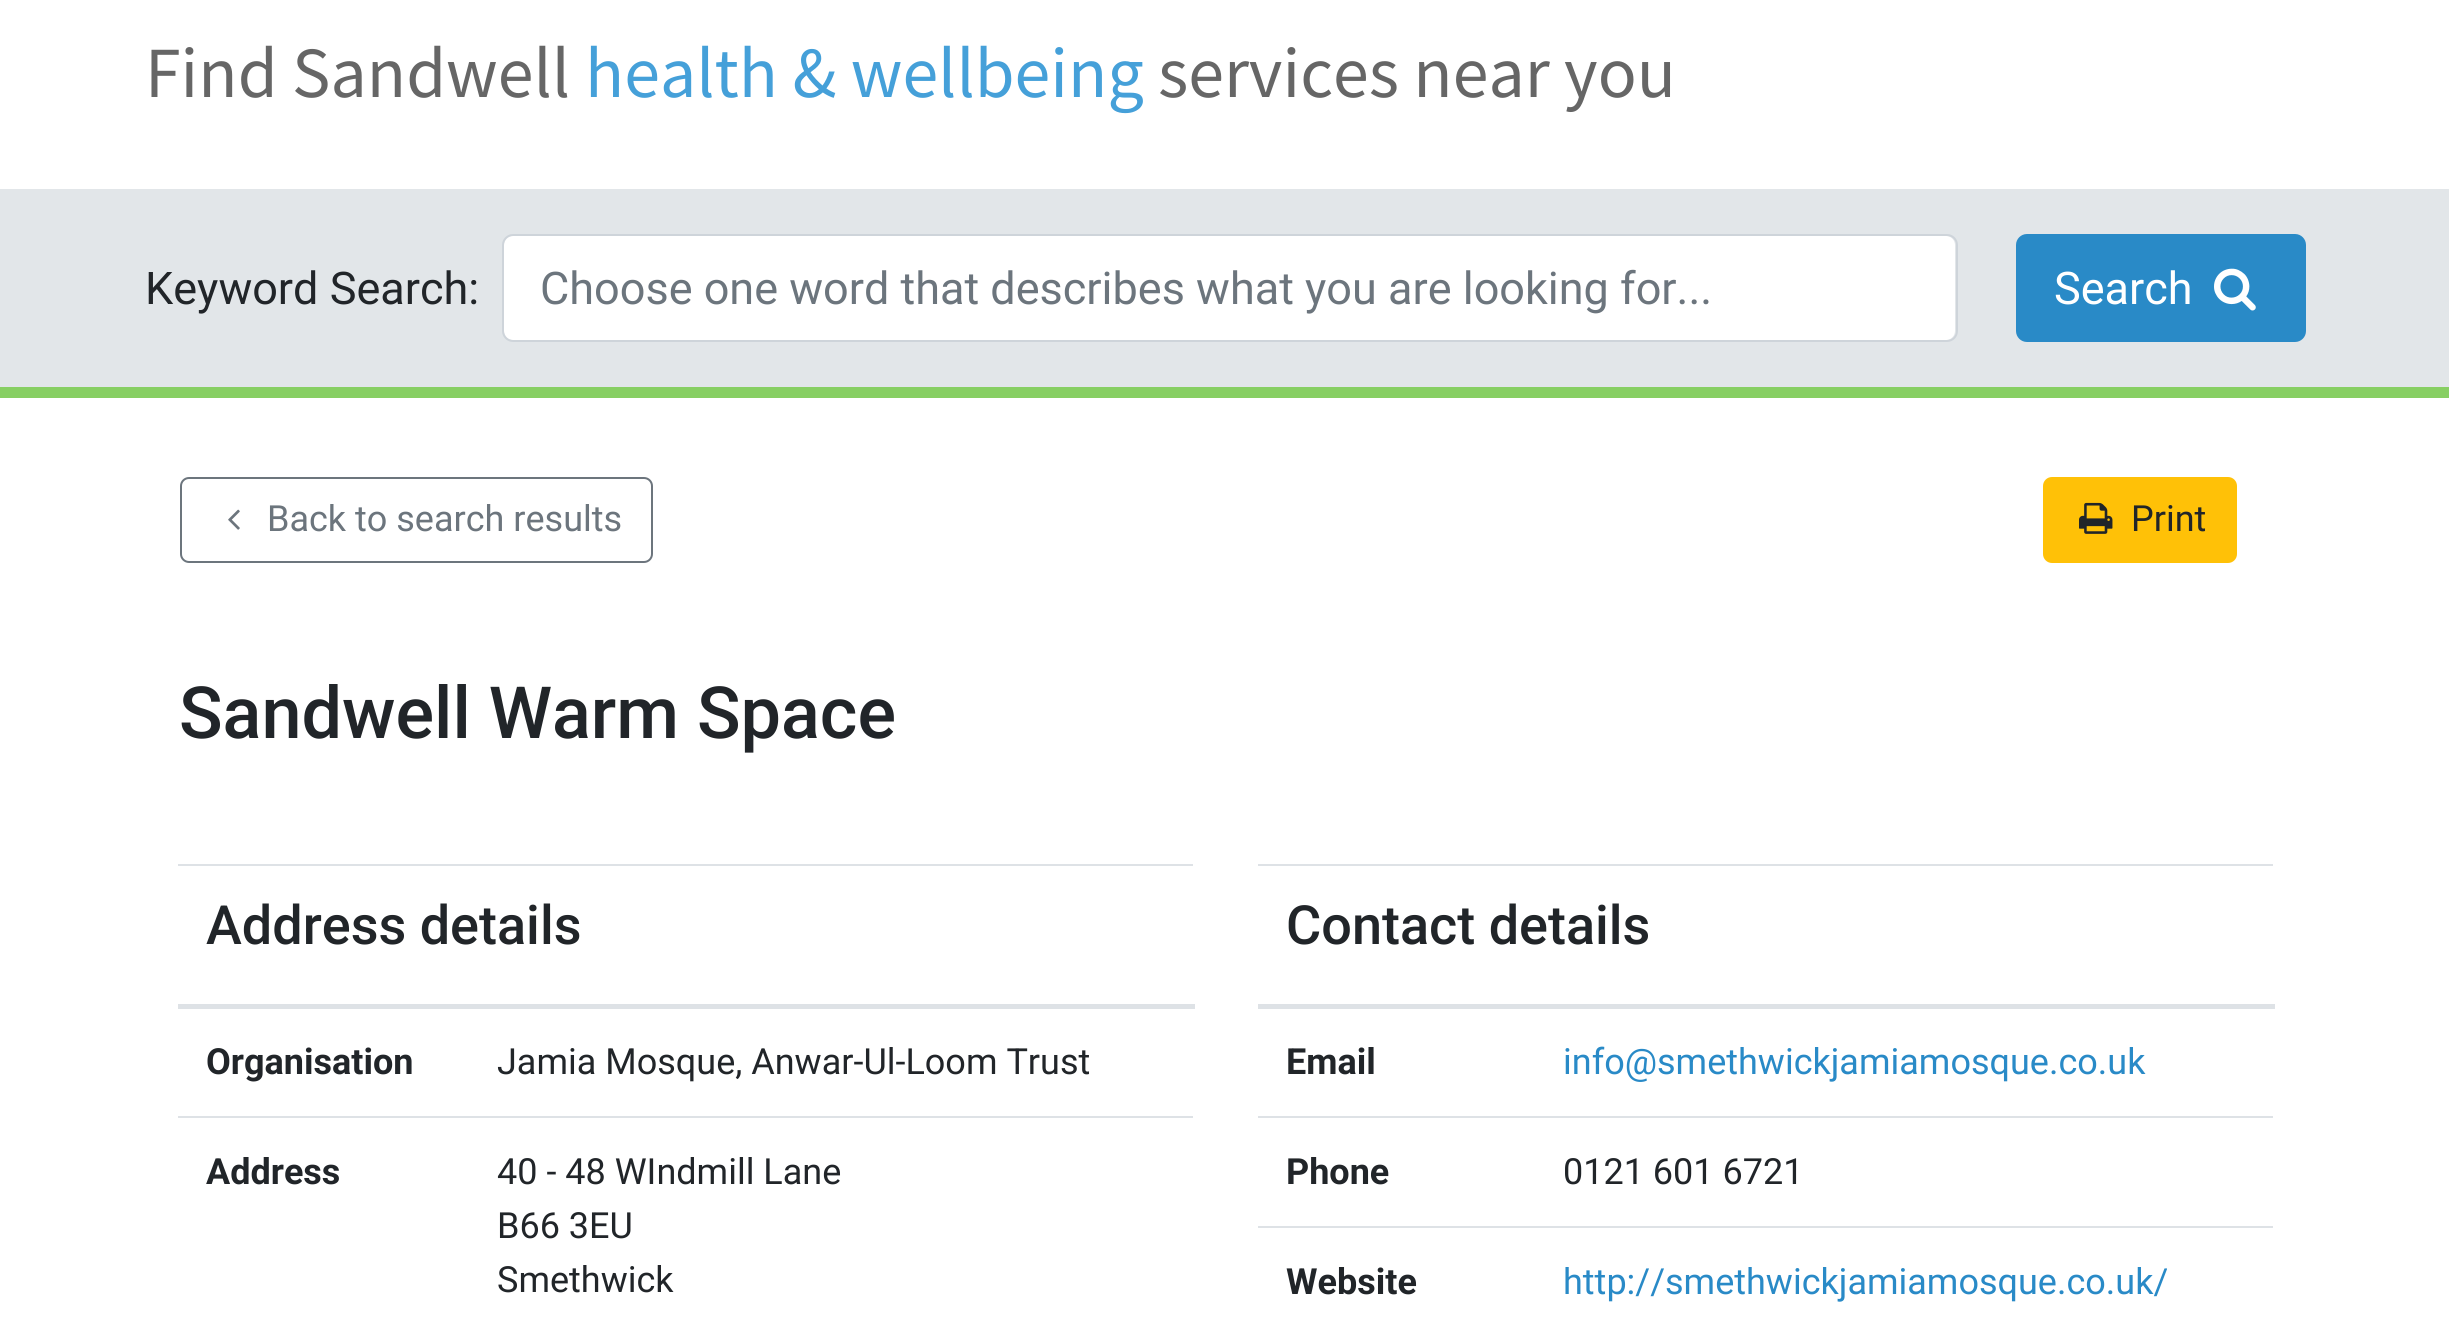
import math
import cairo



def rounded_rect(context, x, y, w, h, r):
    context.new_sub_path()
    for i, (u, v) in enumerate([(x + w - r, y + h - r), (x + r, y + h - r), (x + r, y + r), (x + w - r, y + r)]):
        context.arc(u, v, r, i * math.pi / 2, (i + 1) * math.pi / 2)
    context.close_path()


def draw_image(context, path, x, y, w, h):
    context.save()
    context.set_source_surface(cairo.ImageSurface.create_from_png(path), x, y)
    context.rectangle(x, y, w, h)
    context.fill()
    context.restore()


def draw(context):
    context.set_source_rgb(1, 1, 1)
    context.paint()
    context.set_source_rgb(226 / 255, 230 / 255, 233 / 255)
    context.rectangle(0, 189, 2449, 198)
    context.fill()
    context.set_source_rgb(135 / 255, 207 / 255, 99 / 255)
    context.rectangle(0, 387, 2449, 11)
    context.fill()
    context.set_source_rgb(1, 1, 1)
    rounded_rect(context, 504, 236, 1451, 104, 9)
    context.fill()
    rounded_rect(context, 503, 235, 1454, 106, 10)
    context.set_source_rgb(206 / 255, 212 / 255, 218 / 255)
    context.stroke()
    context.set_source_rgb(41 / 255, 138 / 255, 199 / 255)
    rounded_rect(context, 2017, 235, 288, 106, 10)
    context.fill_preserve()
    context.stroke()
    draw_image(context, "images/1.png", 2214, 268, 42, 43)
    rounded_rect(context, 181, 478, 471, 84, 8)
    context.set_source_rgb(108 / 255, 117 / 255, 125 / 255)
    context.stroke()
    draw_image(context, "images/2.png", 228, 509, 12, 21)
    context.set_source_rgb(1, 193 / 255, 7 / 255)
    rounded_rect(context, 2044, 478, 192, 84, 8)
    context.fill_preserve()
    context.stroke()
    draw_image(context, "images/3.png", 2079, 502, 34, 32)
    context.set_source_rgb(222 / 255, 226 / 255, 230 / 255)
    context.rectangle(178, 864, 1015, 2)
    context.fill()
    context.rectangle(178, 1004, 1017, 5)
    context.fill()
    context.rectangle(178, 1116, 1015, 2)
    context.fill()
    context.rectangle(1258, 864, 1015, 2)
    context.fill()
    context.rectangle(1258, 1004, 1017, 5)
    context.fill()
    context.rectangle(1258, 1116, 1015, 2)
    context.fill()
    context.rectangle(1258, 1226, 1015, 2)
    context.fill()
    context.select_font_face("Source Sans Pro")
    context.set_font_size(72)
    context.set_source_rgb(102 / 255, 102 / 255, 102 / 255)
    context.move_to(145, 97)
    context.show_text("Find Sandwell")
    context.set_source_rgb(69 / 255, 160 / 255, 217 / 255)
    context.move_to(585, 97)
    context.show_text("health & wellbeing")
    context.set_source_rgb(102 / 255, 102 / 255, 102 / 255)
    context.move_to(1158, 97)
    context.show_text("services near you")
    context.select_font_face("Roboto")
    context.set_font_size(45)
    context.set_source_rgb(33 / 255, 37 / 255, 41 / 255)
    context.move_to(145, 304)
    context.show_text("Keyword Search:")
    context.set_source_rgb(108 / 255, 117 / 255, 125 / 255)
    context.move_to(540, 304)
    context.show_text("Choose one word that describes what you are looking for...")
    context.set_source_rgb(1, 1, 1)
    context.move_to(2054, 304)
    context.show_text("Search")
    context.set_font_size(36)
    context.set_source_rgb(108 / 255, 117 / 255, 125 / 255)
    context.move_to(267, 531)
    context.show_text("Back to search results")
    context.set_source_rgb(33 / 255, 37 / 255, 41 / 255)
    context.move_to(2131, 531)
    context.show_text("Print")
    context.select_font_face("Roboto Medium")
    context.set_font_size(72)
    context.move_to(179, 738)
    context.show_text("Sandwell Warm Space")
    context.set_font_size(54)
    context.move_to(206, 944)
    context.show_text("Address details")
    context.select_font_face("Roboto", cairo.FontSlant.NORMAL, cairo.FontWeight.BOLD)
    context.set_font_size(36)
    context.move_to(206, 1074)
    context.show_text("Organisation")
    context.select_font_face("Roboto")
    context.move_to(497, 1074)
    context.show_text("Jamia Mosque, Anwar-Ul-Loom Trust")
    context.select_font_face("Roboto", cairo.FontSlant.NORMAL, cairo.FontWeight.BOLD)
    context.move_to(206, 1184)
    context.show_text("Address")
    context.select_font_face("Roboto")
    context.move_to(497, 1184)
    context.show_text("40 - 48 WIndmill Lane")
    context.move_to(497, 1238)
    context.show_text("B66 3EU")
    context.move_to(497, 1292)
    context.show_text("Smethwick")
    context.select_font_face("Roboto Medium")
    context.set_font_size(54)
    context.move_to(1286, 944)
    context.show_text("Contact details")
    context.select_font_face("Roboto", cairo.FontSlant.NORMAL, cairo.FontWeight.BOLD)
    context.set_font_size(36)
    context.move_to(1286, 1074)
    context.show_text("Email")
    context.select_font_face("Roboto")
    context.set_source_rgb(41 / 255, 138 / 255, 199 / 255)
    context.move_to(1563, 1074)
    context.show_text("info@smethwickjamiamosque.co.uk")
    context.select_font_face("Roboto", cairo.FontSlant.NORMAL, cairo.FontWeight.BOLD)
    context.set_source_rgb(33 / 255, 37 / 255, 41 / 255)
    context.move_to(1286, 1184)
    context.show_text("Phone")
    context.select_font_face("Roboto")
    context.move_to(1563, 1184)
    context.show_text("0121 601 6721")
    context.select_font_face("Roboto", cairo.FontSlant.NORMAL, cairo.FontWeight.BOLD)
    context.move_to(1286, 1294)
    context.show_text("Website")
    context.select_font_face("Roboto")
    context.set_source_rgb(41 / 255, 138 / 255, 199 / 255)
    context.move_to(1563, 1294)
    context.show_text("http://smethwickjamiamosque.co.uk/")


surface = cairo.ImageSurface(cairo.Format.RGB24, 2449, 1337)
context = cairo.Context(surface)
options = cairo.FontOptions()
options.set_hint_metrics(cairo.HintMetrics.OFF)
options.set_hint_style(cairo.HintStyle.NONE)
context.set_font_options(options)
context.set_miter_limit(4)
draw(context)
surface.write_to_png("out.png")
